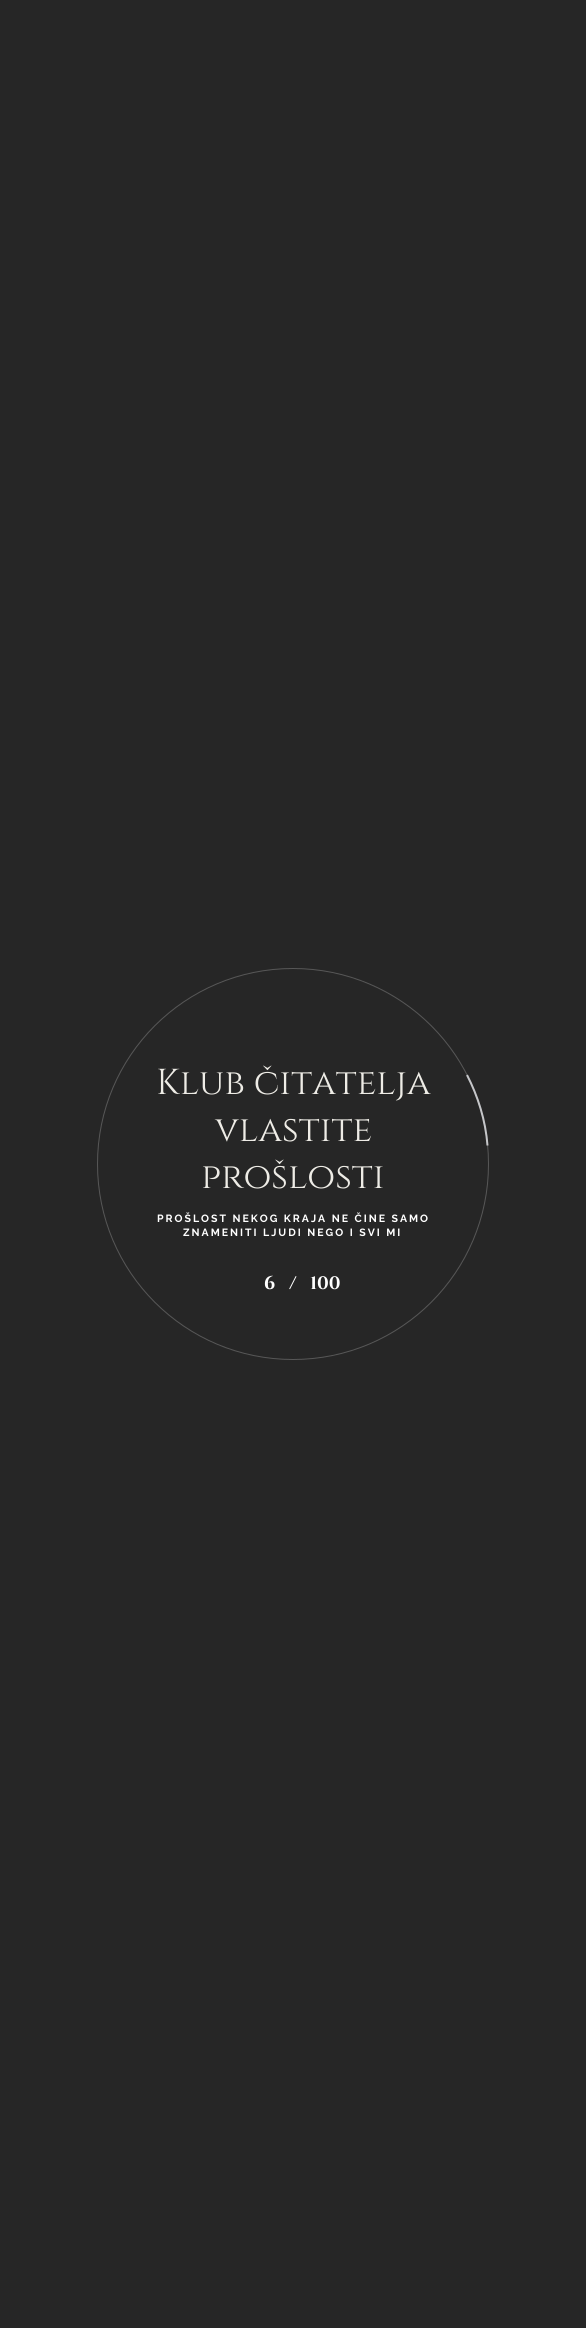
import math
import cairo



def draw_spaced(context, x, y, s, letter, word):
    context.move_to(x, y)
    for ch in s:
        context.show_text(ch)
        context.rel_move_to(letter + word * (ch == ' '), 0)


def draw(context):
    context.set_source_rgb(38 / 255, 38 / 255, 38 / 255)
    context.paint()
    context.select_font_face("Cinzel")
    context.set_font_size(36)
    context.set_source_rgb(238 / 255, 236 / 255, 230 / 255)
    context.move_to(156, 1094)
    context.show_text("Klub čitatelja")
    context.move_to(215, 1141)
    context.show_text("vlastite")
    context.move_to(201, 1188)
    context.show_text("prošlosti")
    context.select_font_face("Raleway", cairo.FontSlant.NORMAL, cairo.FontWeight.BOLD)
    context.set_font_size(10.5)
    context.set_source_rgb(1, 1, 1)
    draw_spaced(context, 157, 1222, "PROŠLOST NEKOG KRAJA NE ČINE SAMO", 2, 0)
    draw_spaced(context, 183, 1236, "ZNAMENITI LJUDI NEGO I SVI MI", 2, 0)
    context.select_font_face("Cinzel", cairo.FontSlant.NORMAL, cairo.FontWeight.BOLD)
    context.set_font_size(18)
    context.move_to(264, 1289)
    context.show_text("6")
    context.move_to(289, 1289)
    context.show_text("/")
    context.move_to(310, 1289)
    context.show_text("100")
    context.new_path()
    context.arc(293, 1164, 195.5, 0, 2 * math.pi)
    context.set_source_rgb(87 / 255, 87 / 255, 87 / 255)
    context.set_line_width(1)
    context.stroke()
    context.new_path()
    context.move_to(467, 1075)
    context.curve_to(478, 1096.5, 485.5, 1120, 487.5, 1145.5)
    context.set_source_rgb(197 / 255, 198 / 255, 201 / 255)
    context.set_line_width(2)
    context.stroke()


surface = cairo.ImageSurface(cairo.Format.RGB24, 586, 2328)
context = cairo.Context(surface)
options = cairo.FontOptions()
options.set_hint_metrics(cairo.HintMetrics.OFF)
options.set_hint_style(cairo.HintStyle.NONE)
context.set_font_options(options)
context.set_miter_limit(4)
draw(context)
surface.write_to_png("out.png")
